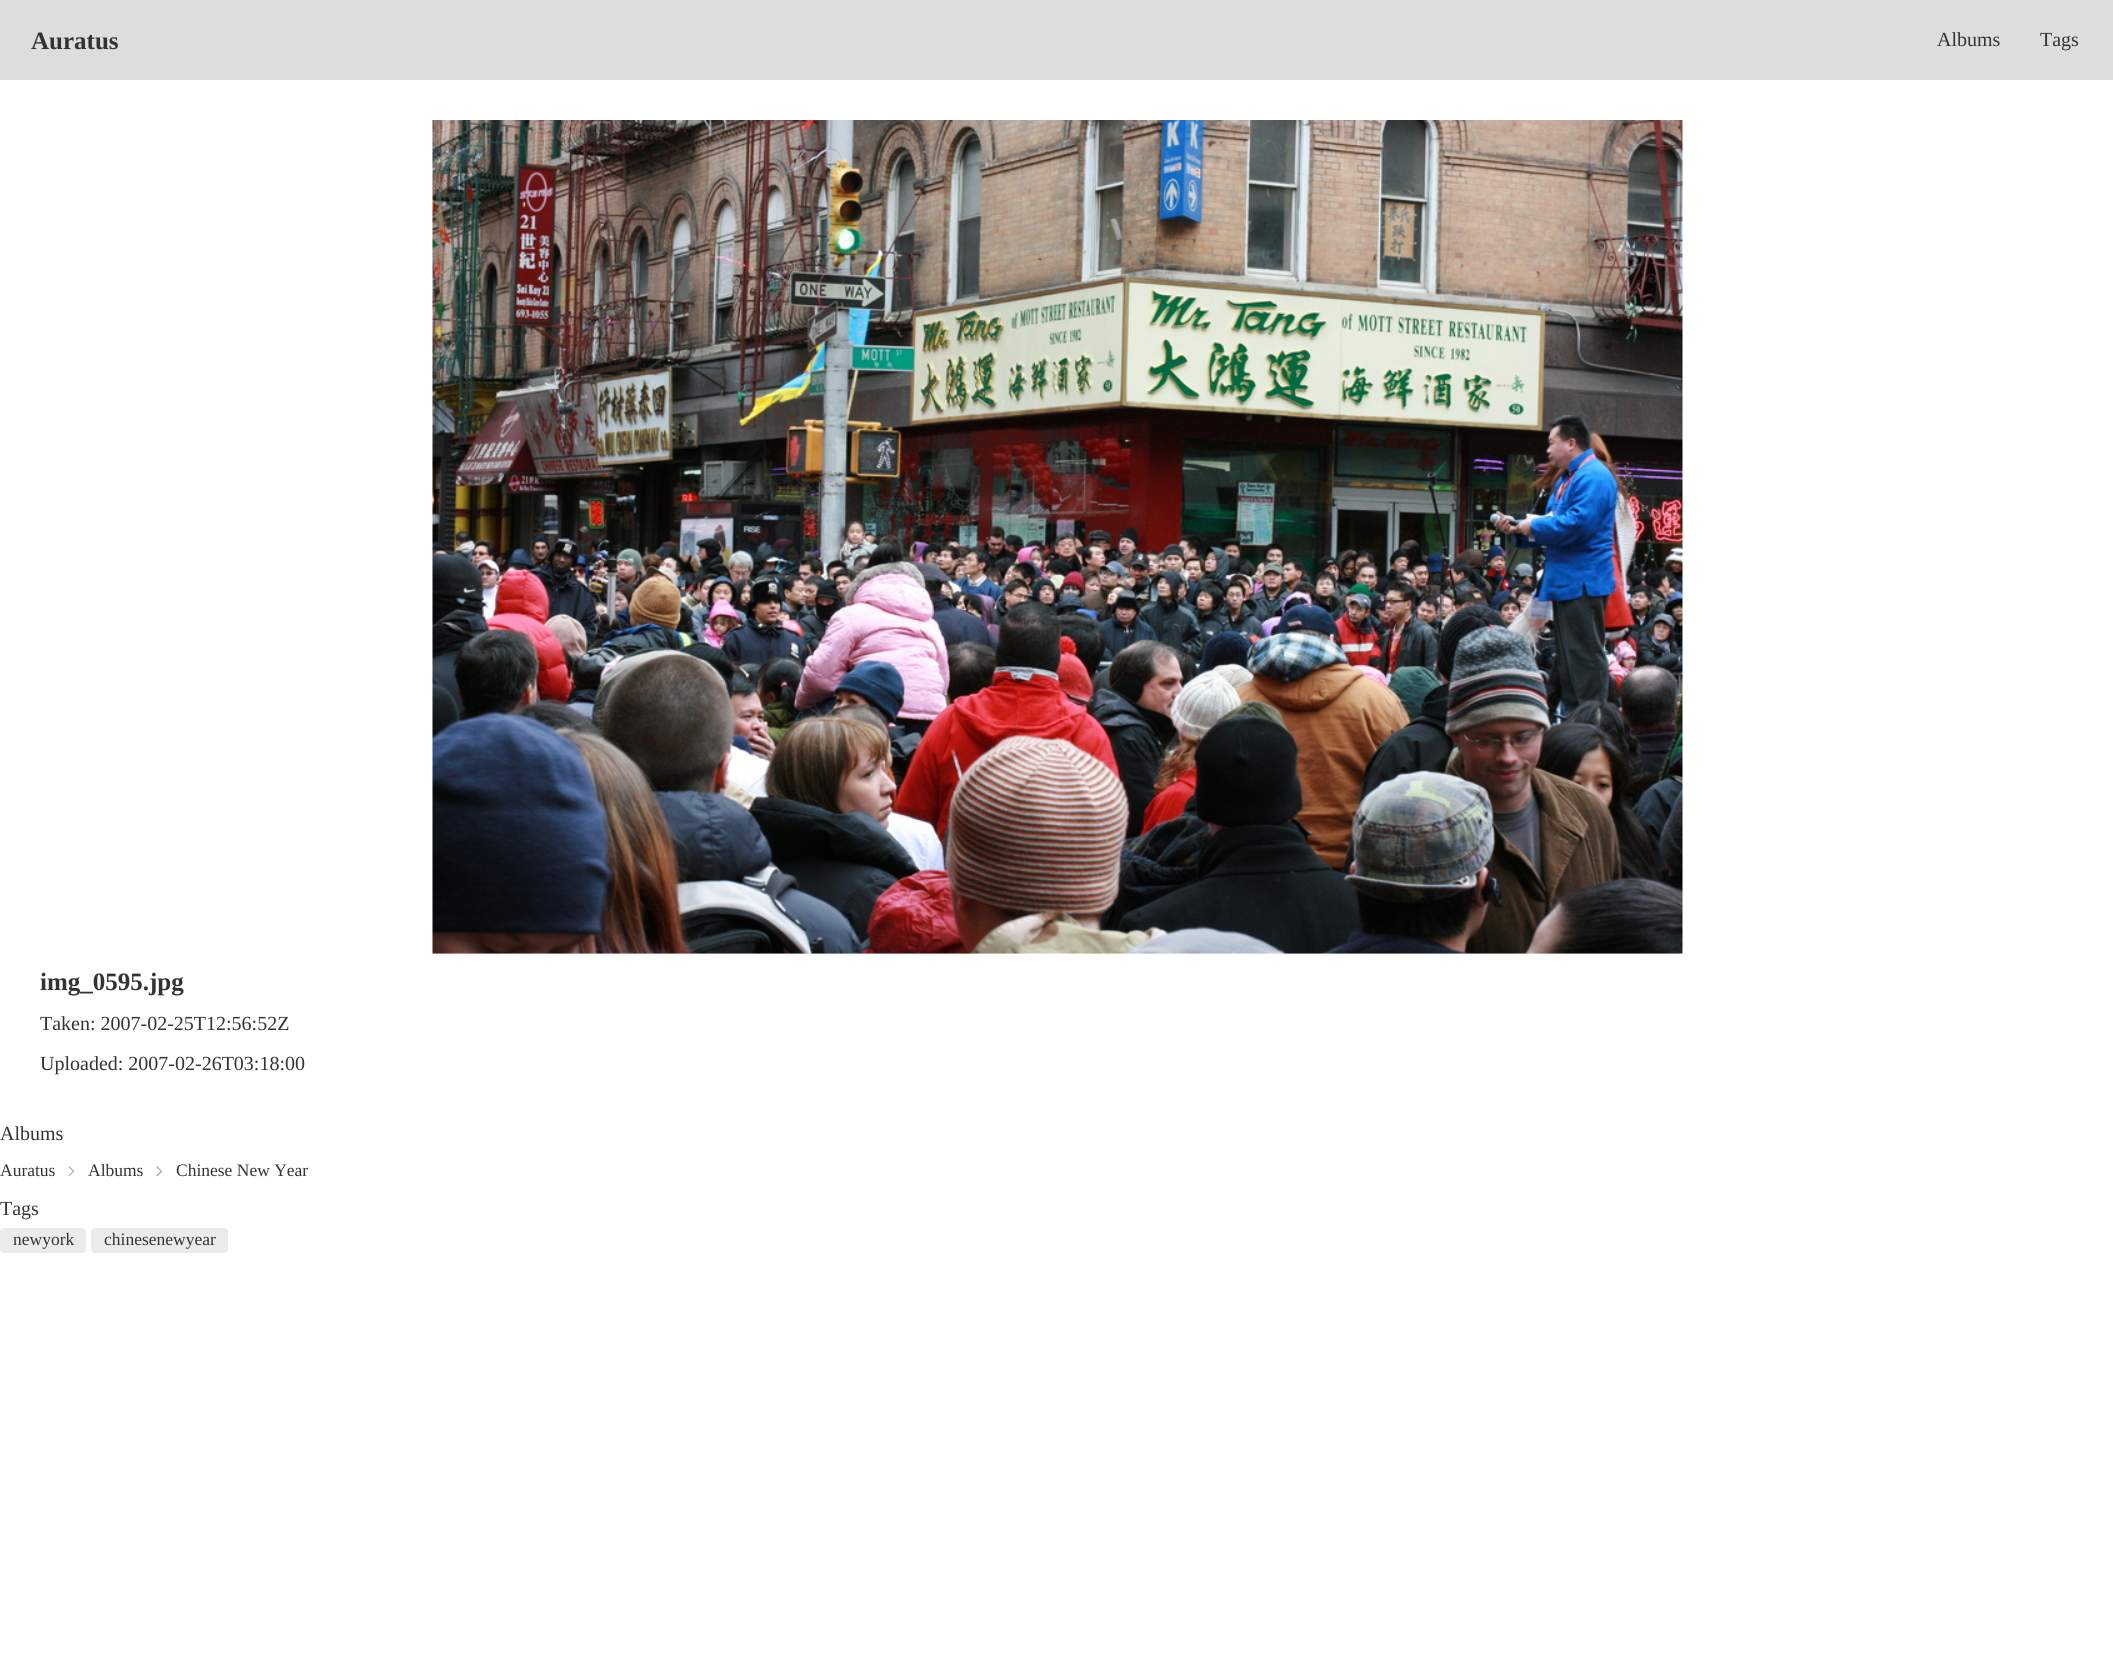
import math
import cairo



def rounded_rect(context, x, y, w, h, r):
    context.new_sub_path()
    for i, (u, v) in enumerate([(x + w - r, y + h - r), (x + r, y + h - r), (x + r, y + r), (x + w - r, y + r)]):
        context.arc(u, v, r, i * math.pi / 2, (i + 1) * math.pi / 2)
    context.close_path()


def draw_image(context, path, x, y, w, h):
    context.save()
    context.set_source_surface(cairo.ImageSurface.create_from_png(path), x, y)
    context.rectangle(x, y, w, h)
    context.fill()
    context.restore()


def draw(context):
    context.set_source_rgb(1, 1, 1)
    context.paint()
    context.set_source_rgb(221 / 255, 221 / 255, 221 / 255)
    context.rectangle(0, 0, 2113, 80)
    context.fill()
    draw_image(context, "images/1.png", 432, 120, 1251, 834)
    context.set_source_rgb(173 / 255, 173 / 255, 173 / 255)
    context.new_path()
    context.move_to(69, 1166)
    context.line_to(74.5, 1171)
    context.line_to(73.5, 1172)
    context.line_to(68.5, 1167)
    context.close_path()
    context.fill()
    context.new_path()
    context.move_to(73.5, 1170.5)
    context.line_to(74.5, 1171)
    context.line_to(69, 1176.5)
    context.line_to(68.5, 1175.5)
    context.close_path()
    context.fill()
    context.new_path()
    context.move_to(157, 1166)
    context.line_to(162.5, 1171.5)
    context.line_to(161.5, 1172)
    context.line_to(156, 1167)
    context.close_path()
    context.fill()
    context.new_path()
    context.move_to(161.5, 1170.5)
    context.line_to(162.5, 1171.5)
    context.line_to(157, 1176.5)
    context.line_to(156, 1175.5)
    context.close_path()
    context.fill()
    context.set_source_rgb(235 / 255, 235 / 255, 235 / 255)
    rounded_rect(context, 0.5, 1228.5, 85, 24, 3.5)
    context.fill_preserve()
    context.set_line_width(1)
    context.stroke()
    rounded_rect(context, 91.5, 1228.5, 136, 24, 3.5)
    context.fill_preserve()
    context.stroke()
    context.select_font_face("Liberation Serif", cairo.FontSlant.NORMAL, cairo.FontWeight.BOLD)
    context.set_font_size(25)
    context.set_source_rgb(51 / 255, 51 / 255, 51 / 255)
    context.move_to(31, 49)
    context.show_text("Auratus")
    context.select_font_face("Liberation Serif")
    context.set_font_size(20)
    context.move_to(1937, 46)
    context.show_text("Albums")
    context.move_to(2040, 46)
    context.show_text("Tags")
    context.select_font_face("Liberation Serif", cairo.FontSlant.NORMAL, cairo.FontWeight.BOLD)
    context.set_font_size(25)
    context.move_to(40, 990)
    context.show_text("img_0595.jpg")
    context.select_font_face("Liberation Serif")
    context.set_font_size(20)
    context.move_to(40, 1030)
    context.show_text("Taken: 2007-02-25T12:56:52Z")
    context.move_to(40, 1070)
    context.show_text("Uploaded: 2007-02-26T03:18:00")
    context.move_to(0, 1140)
    context.show_text("Albums")
    context.set_font_size(17.5)
    context.move_to(0, 1176)
    context.show_text("Auratus")
    context.move_to(88, 1176)
    context.show_text("Albums")
    context.move_to(176, 1176)
    context.show_text("Chinese New Year")
    context.set_font_size(20)
    context.move_to(0, 1215)
    context.show_text("Tags")
    context.set_font_size(17.5)
    context.move_to(13, 1245)
    context.show_text("newyork")
    context.move_to(104, 1245)
    context.show_text("chinesenewyear")


surface = cairo.ImageSurface(cairo.Format.RGB24, 2113, 1667)
context = cairo.Context(surface)
options = cairo.FontOptions()
options.set_hint_metrics(cairo.HintMetrics.OFF)
options.set_hint_style(cairo.HintStyle.NONE)
context.set_font_options(options)
context.set_miter_limit(4)
draw(context)
surface.write_to_png("out.png")
